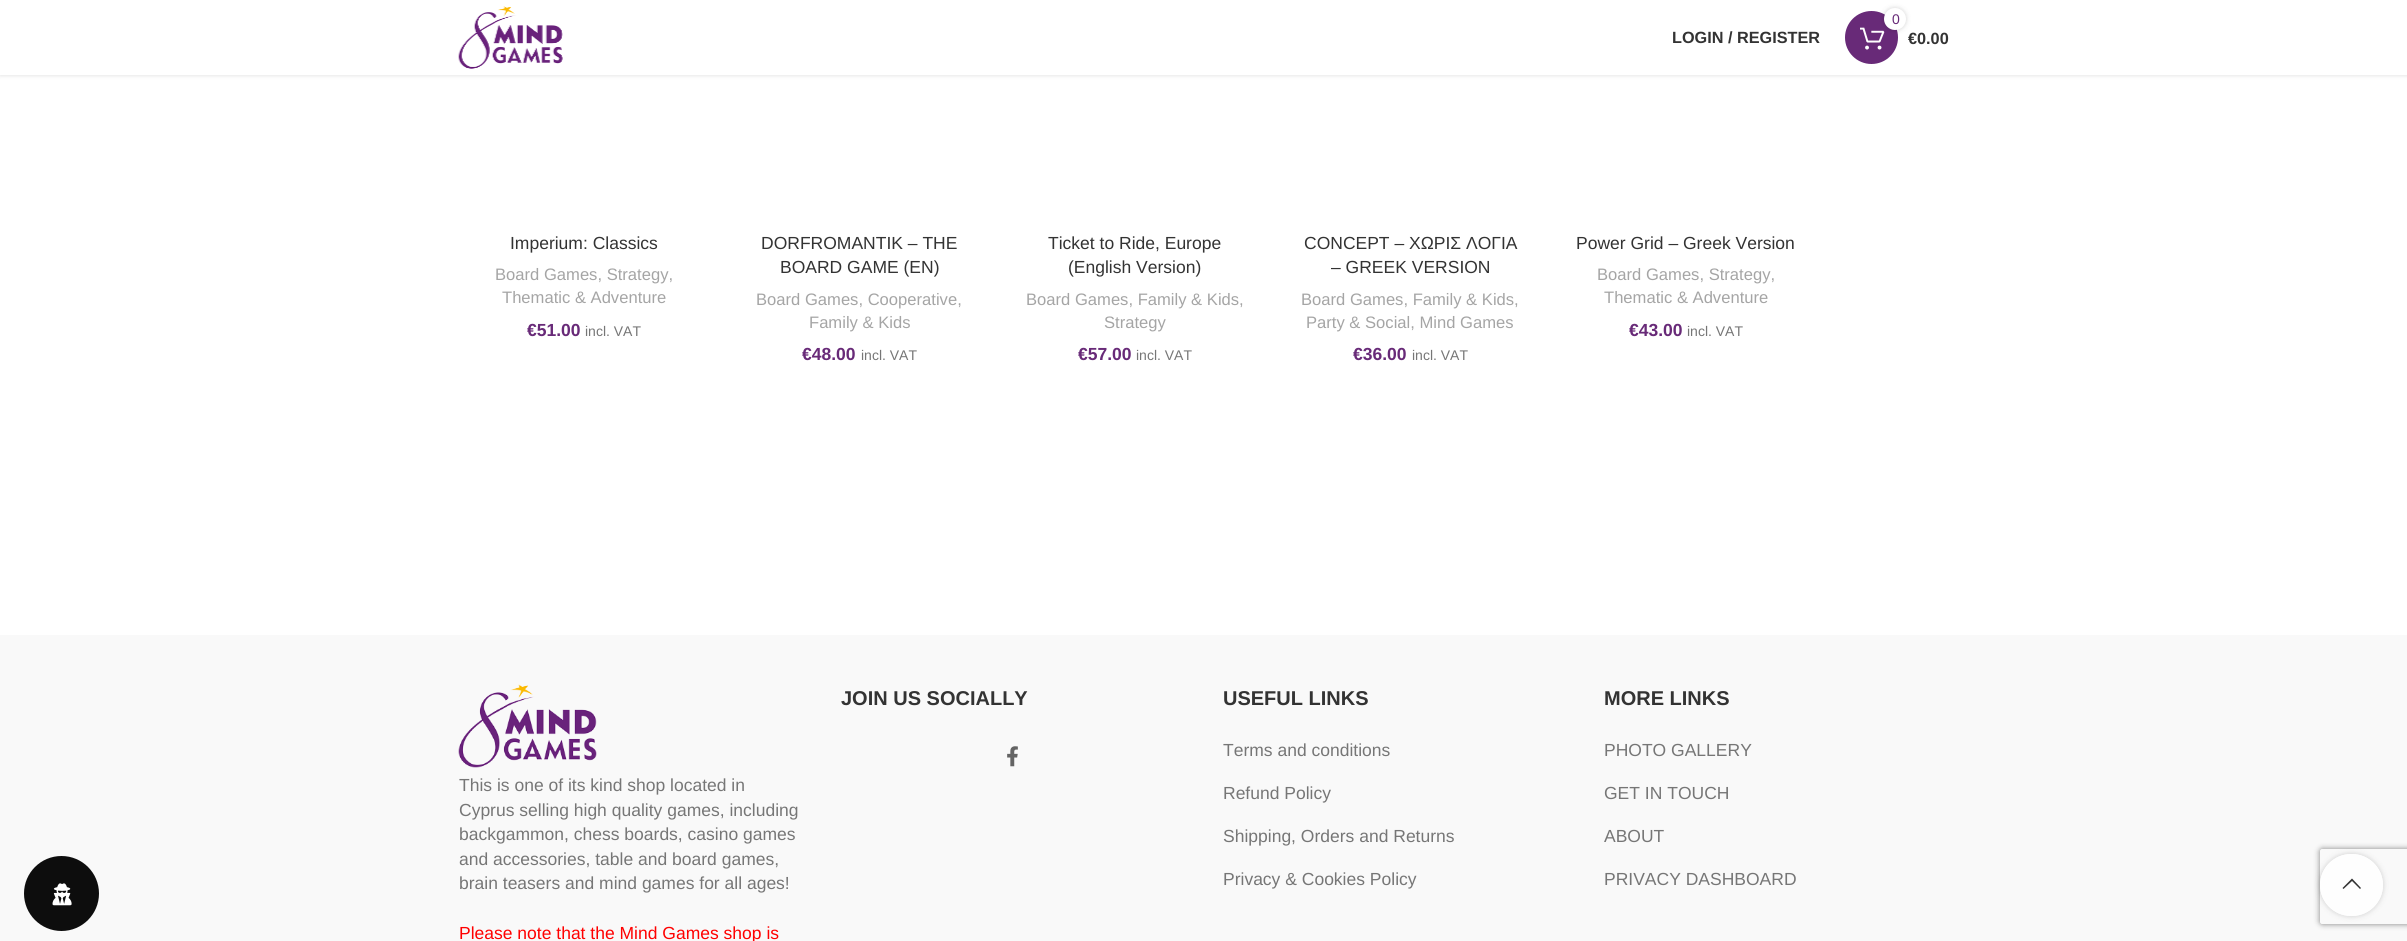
import math
import cairo



def rounded_rect(context, x, y, w, h, r):
    context.new_sub_path()
    for i, (u, v) in enumerate([(x + w - r, y + h - r), (x + r, y + h - r), (x + r, y + r), (x + w - r, y + r)]):
        context.arc(u, v, r, i * math.pi / 2, (i + 1) * math.pi / 2)
    context.close_path()


def draw_shadow(context, x, y, w, h, r, blur, alpha):
    context.push_group_with_content(cairo.Content.ALPHA)
    context.set_operator(cairo.Operator.SOURCE)
    for i in range(15, -16, -2):
        e = blur * i / 6
        if min(w, h) + 2 * e > 0:
            context.set_source_rgba(0, 0, 0, alpha * math.erfc((i - 1) / 8.5) / 2)
            rounded_rect(context, x - e, y - e, w + 2 * e, h + 2 * e, max(0, min(r + e + blur * .6, min(w, h) / 2 + e)))
            context.fill()
    context.mask(context.pop_group())


def draw_image(context, path, x, y, w, h):
    context.save()
    context.set_source_surface(cairo.ImageSurface.create_from_png(path), x, y)
    context.rectangle(x, y, w, h)
    context.fill()
    context.restore()


def draw(context):
    context.set_source_rgb(1, 1, 1)
    context.paint()
    context.set_source_rgb(0, 0, 0)
    draw_shadow(context, 0, 1, 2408, 75, 0, 2, 0.1)
    context.set_source_rgb(1, 1, 1)
    context.rectangle(0, 0, 2407, 75)
    context.fill()
    draw_image(context, "images/1.png", 458, 6, 105, 63)
    context.set_source_rgb(104 / 255, 42 / 255, 120 / 255)
    context.arc(1871.5, 37.5, 26.5, 0, 2 * math.pi)
    context.fill()
    draw_image(context, "images/2.png", 1860, 27, 25, 23)
    context.set_source_rgb(0, 0, 0)
    draw_shadow(context, 1884, 8, 22, 22, 11, 2.5, 0.17)
    context.set_source_rgb(1, 1, 1)
    context.arc(1895, 19, 11, 0, 2 * math.pi)
    context.fill()
    context.set_source_rgb(249 / 255, 249 / 255, 249 / 255)
    context.rectangle(0, 635, 2407, 306)
    context.fill()
    draw_image(context, "images/3.png", 458, 684, 139, 84)
    draw_image(context, "images/4.png", 1007, 746, 11, 21)
    context.save()
    context.set_fill_rule(cairo.FillRule.EVEN_ODD)
    context.new_path()
    context.move_to(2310, 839)
    context.line_to(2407, 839)
    context.line_to(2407, 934)
    context.line_to(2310, 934)
    context.close_path()
    context.move_to(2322.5, 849)
    context.line_to(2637.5, 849)
    context.curve_to(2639, 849, 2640, 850, 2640, 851.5)
    context.line_to(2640, 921.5)
    context.curve_to(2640, 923, 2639, 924, 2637.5, 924)
    context.line_to(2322.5, 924)
    context.curve_to(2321, 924, 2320, 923, 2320, 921.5)
    context.line_to(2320, 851.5)
    context.curve_to(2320, 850, 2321, 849, 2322.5, 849)
    context.close_path()
    context.clip()
    context.set_source_rgb(128 / 255, 128 / 255, 128 / 255)
    draw_shadow(context, 2320, 849, 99, 75, 2.5, 3, 1)
    context.restore()
    context.set_source_rgb(13 / 255, 13 / 255, 13 / 255)
    context.arc(61.5, 893.5, 37.5, 0, 2 * math.pi)
    context.fill()
    draw_image(context, "images/5.png", 52, 883, 20, 23)
    context.save()
    context.set_fill_rule(cairo.FillRule.EVEN_ODD)
    context.new_path()
    context.move_to(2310, 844)
    context.line_to(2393, 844)
    context.line_to(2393, 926)
    context.line_to(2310, 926)
    context.close_path()
    context.move_to(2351, 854)
    context.line_to(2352, 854)
    context.curve_to(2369, 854, 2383, 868, 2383, 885)
    context.curve_to(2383, 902, 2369, 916, 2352, 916)
    context.line_to(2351, 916)
    context.curve_to(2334, 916, 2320, 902, 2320, 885)
    context.curve_to(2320, 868, 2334, 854, 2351, 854)
    context.close_path()
    context.clip()
    context.set_source_rgb(0, 0, 0)
    draw_shadow(context, 2320, 854, 63, 62, 31, 3, 0.17)
    context.restore()
    context.set_source_rgba(1, 1, 1, 0.9)
    rounded_rect(context, 2320, 854, 63, 62, 31)
    context.fill()
    context.set_source_rgb(51 / 255, 51 / 255, 51 / 255)
    context.new_path()
    context.move_to(2360, 889)
    context.line_to(2361, 888)
    context.line_to(2352, 878.5)
    context.line_to(2342.5, 888)
    context.line_to(2343.5, 889)
    context.line_to(2352, 881)
    context.close_path()
    context.fill()
    context.select_font_face("Liberation Sans", cairo.FontSlant.NORMAL, cairo.FontWeight.BOLD)
    context.set_font_size(16.25)
    context.move_to(1672, 43)
    context.show_text("LOGIN / REGISTER")
    context.select_font_face("Liberation Sans")
    context.set_font_size(14)
    context.set_source_rgb(104 / 255, 42 / 255, 120 / 255)
    context.move_to(1892, 24)
    context.show_text("0")
    context.select_font_face("Liberation Sans", cairo.FontSlant.NORMAL, cairo.FontWeight.BOLD)
    context.set_font_size(16.25)
    context.set_source_rgb(51 / 255, 51 / 255, 51 / 255)
    context.move_to(1908, 44)
    context.show_text("€0.00")
    context.select_font_face("Liberation Sans")
    context.set_font_size(17.5)
    context.move_to(510, 249)
    context.show_text("Imperium: Classics")
    context.set_font_size(16.6)
    context.set_source_rgb(165 / 255, 165 / 255, 165 / 255)
    context.move_to(495, 280)
    context.show_text("Board Games, Strategy,")
    context.move_to(502, 303)
    context.show_text("Thematic & Adventure")
    context.select_font_face("Liberation Sans", cairo.FontSlant.NORMAL, cairo.FontWeight.BOLD)
    context.set_font_size(17.5)
    context.set_source_rgb(104 / 255, 42 / 255, 120 / 255)
    context.move_to(527, 336)
    context.show_text("€51.00")
    context.select_font_face("Liberation Sans")
    context.set_font_size(14)
    context.set_source_rgb(118 / 255, 118 / 255, 118 / 255)
    context.move_to(585, 336)
    context.show_text("incl. VAT")
    context.set_font_size(17.5)
    context.set_source_rgb(51 / 255, 51 / 255, 51 / 255)
    context.move_to(761, 249)
    context.show_text("DORFROMANTIK – THE")
    context.move_to(780, 273)
    context.show_text("BOARD GAME (EN)")
    context.set_font_size(16.6)
    context.set_source_rgb(165 / 255, 165 / 255, 165 / 255)
    context.move_to(756, 305)
    context.show_text("Board Games, Cooperative,")
    context.move_to(809, 328)
    context.show_text("Family & Kids")
    context.select_font_face("Liberation Sans", cairo.FontSlant.NORMAL, cairo.FontWeight.BOLD)
    context.set_font_size(17.5)
    context.set_source_rgb(104 / 255, 42 / 255, 120 / 255)
    context.move_to(802, 360)
    context.show_text("€48.00")
    context.select_font_face("Liberation Sans")
    context.set_font_size(14)
    context.set_source_rgb(118 / 255, 118 / 255, 118 / 255)
    context.move_to(861, 360)
    context.show_text("incl. VAT")
    context.set_font_size(17.5)
    context.set_source_rgb(51 / 255, 51 / 255, 51 / 255)
    context.move_to(1048, 249)
    context.show_text("Ticket to Ride, Europe")
    context.move_to(1068, 273)
    context.show_text("(English Version)")
    context.set_font_size(16.6)
    context.set_source_rgb(165 / 255, 165 / 255, 165 / 255)
    context.move_to(1026, 305)
    context.show_text("Board Games, Family & Kids,")
    context.move_to(1104, 328)
    context.show_text("Strategy")
    context.select_font_face("Liberation Sans", cairo.FontSlant.NORMAL, cairo.FontWeight.BOLD)
    context.set_font_size(17.5)
    context.set_source_rgb(104 / 255, 42 / 255, 120 / 255)
    context.move_to(1078, 360)
    context.show_text("€57.00")
    context.select_font_face("Liberation Sans")
    context.set_font_size(14)
    context.set_source_rgb(118 / 255, 118 / 255, 118 / 255)
    context.move_to(1136, 360)
    context.show_text("incl. VAT")
    context.set_font_size(17.5)
    context.set_source_rgb(51 / 255, 51 / 255, 51 / 255)
    context.move_to(1304, 249)
    context.show_text("CONCEPT – ΧΩΡΙΣ ΛΟΓΙΑ")
    context.move_to(1331, 273)
    context.show_text("– GREEK VERSION")
    context.set_font_size(16.6)
    context.set_source_rgb(165 / 255, 165 / 255, 165 / 255)
    context.move_to(1301, 305)
    context.show_text("Board Games, Family & Kids,")
    context.move_to(1306, 328)
    context.show_text("Party & Social, Mind Games")
    context.select_font_face("Liberation Sans", cairo.FontSlant.NORMAL, cairo.FontWeight.BOLD)
    context.set_font_size(17.5)
    context.set_source_rgb(104 / 255, 42 / 255, 120 / 255)
    context.move_to(1353, 360)
    context.show_text("€36.00")
    context.select_font_face("Liberation Sans")
    context.set_font_size(14)
    context.set_source_rgb(118 / 255, 118 / 255, 118 / 255)
    context.move_to(1412, 360)
    context.show_text("incl. VAT")
    context.set_font_size(17.5)
    context.set_source_rgb(51 / 255, 51 / 255, 51 / 255)
    context.move_to(1576, 249)
    context.show_text("Power Grid – Greek Version")
    context.set_font_size(16.6)
    context.set_source_rgb(165 / 255, 165 / 255, 165 / 255)
    context.move_to(1597, 280)
    context.show_text("Board Games, Strategy,")
    context.move_to(1604, 303)
    context.show_text("Thematic & Adventure")
    context.select_font_face("Liberation Sans", cairo.FontSlant.NORMAL, cairo.FontWeight.BOLD)
    context.set_font_size(17.5)
    context.set_source_rgb(104 / 255, 42 / 255, 120 / 255)
    context.move_to(1629, 336)
    context.show_text("€43.00")
    context.select_font_face("Liberation Sans")
    context.set_font_size(14)
    context.set_source_rgb(118 / 255, 118 / 255, 118 / 255)
    context.move_to(1687, 336)
    context.show_text("incl. VAT")
    context.set_font_size(17.5)
    context.move_to(459, 791)
    context.show_text("This is one of its kind shop located in")
    context.move_to(459, 816)
    context.show_text("Cyprus selling high quality games, including")
    context.move_to(459, 840)
    context.show_text("backgammon, chess boards, casino games")
    context.move_to(459, 865)
    context.show_text("and accessories, table and board games,")
    context.move_to(459, 889)
    context.show_text("brain teasers and mind games for all ages!")
    context.set_source_rgb(1, 0, 0)
    context.move_to(459, 939)
    context.show_text("Please note that the Mind Games shop is")
    context.select_font_face("Liberation Sans", cairo.FontSlant.NORMAL, cairo.FontWeight.BOLD)
    context.set_font_size(20)
    context.set_source_rgb(51 / 255, 51 / 255, 51 / 255)
    context.move_to(841, 705)
    context.show_text("JOIN US SOCIALLY")
    context.move_to(1223, 705)
    context.show_text("USEFUL LINKS")
    context.select_font_face("Liberation Sans")
    context.set_font_size(17.5)
    context.set_source_rgb(118 / 255, 118 / 255, 118 / 255)
    context.move_to(1223, 756)
    context.show_text("Terms and conditions")
    context.move_to(1223, 799)
    context.show_text("Refund Policy")
    context.move_to(1223, 842)
    context.show_text("Shipping, Orders and Returns")
    context.move_to(1223, 885)
    context.show_text("Privacy & Cookies Policy")
    context.select_font_face("Liberation Sans", cairo.FontSlant.NORMAL, cairo.FontWeight.BOLD)
    context.set_font_size(20)
    context.set_source_rgb(51 / 255, 51 / 255, 51 / 255)
    context.move_to(1604, 705)
    context.show_text("MORE LINKS")
    context.select_font_face("Liberation Sans")
    context.set_font_size(17.5)
    context.set_source_rgb(118 / 255, 118 / 255, 118 / 255)
    context.move_to(1604, 756)
    context.show_text("PHOTO GALLERY")
    context.move_to(1604, 799)
    context.show_text("GET IN TOUCH")
    context.move_to(1604, 842)
    context.show_text("ABOUT")
    context.move_to(1604, 885)
    context.show_text("PRIVACY DASHBOARD")


surface = cairo.ImageSurface(cairo.Format.RGB24, 2407, 941)
context = cairo.Context(surface)
options = cairo.FontOptions()
options.set_hint_metrics(cairo.HintMetrics.OFF)
options.set_hint_style(cairo.HintStyle.NONE)
context.set_font_options(options)
context.set_miter_limit(4)
draw(context)
surface.write_to_png("out.png")
